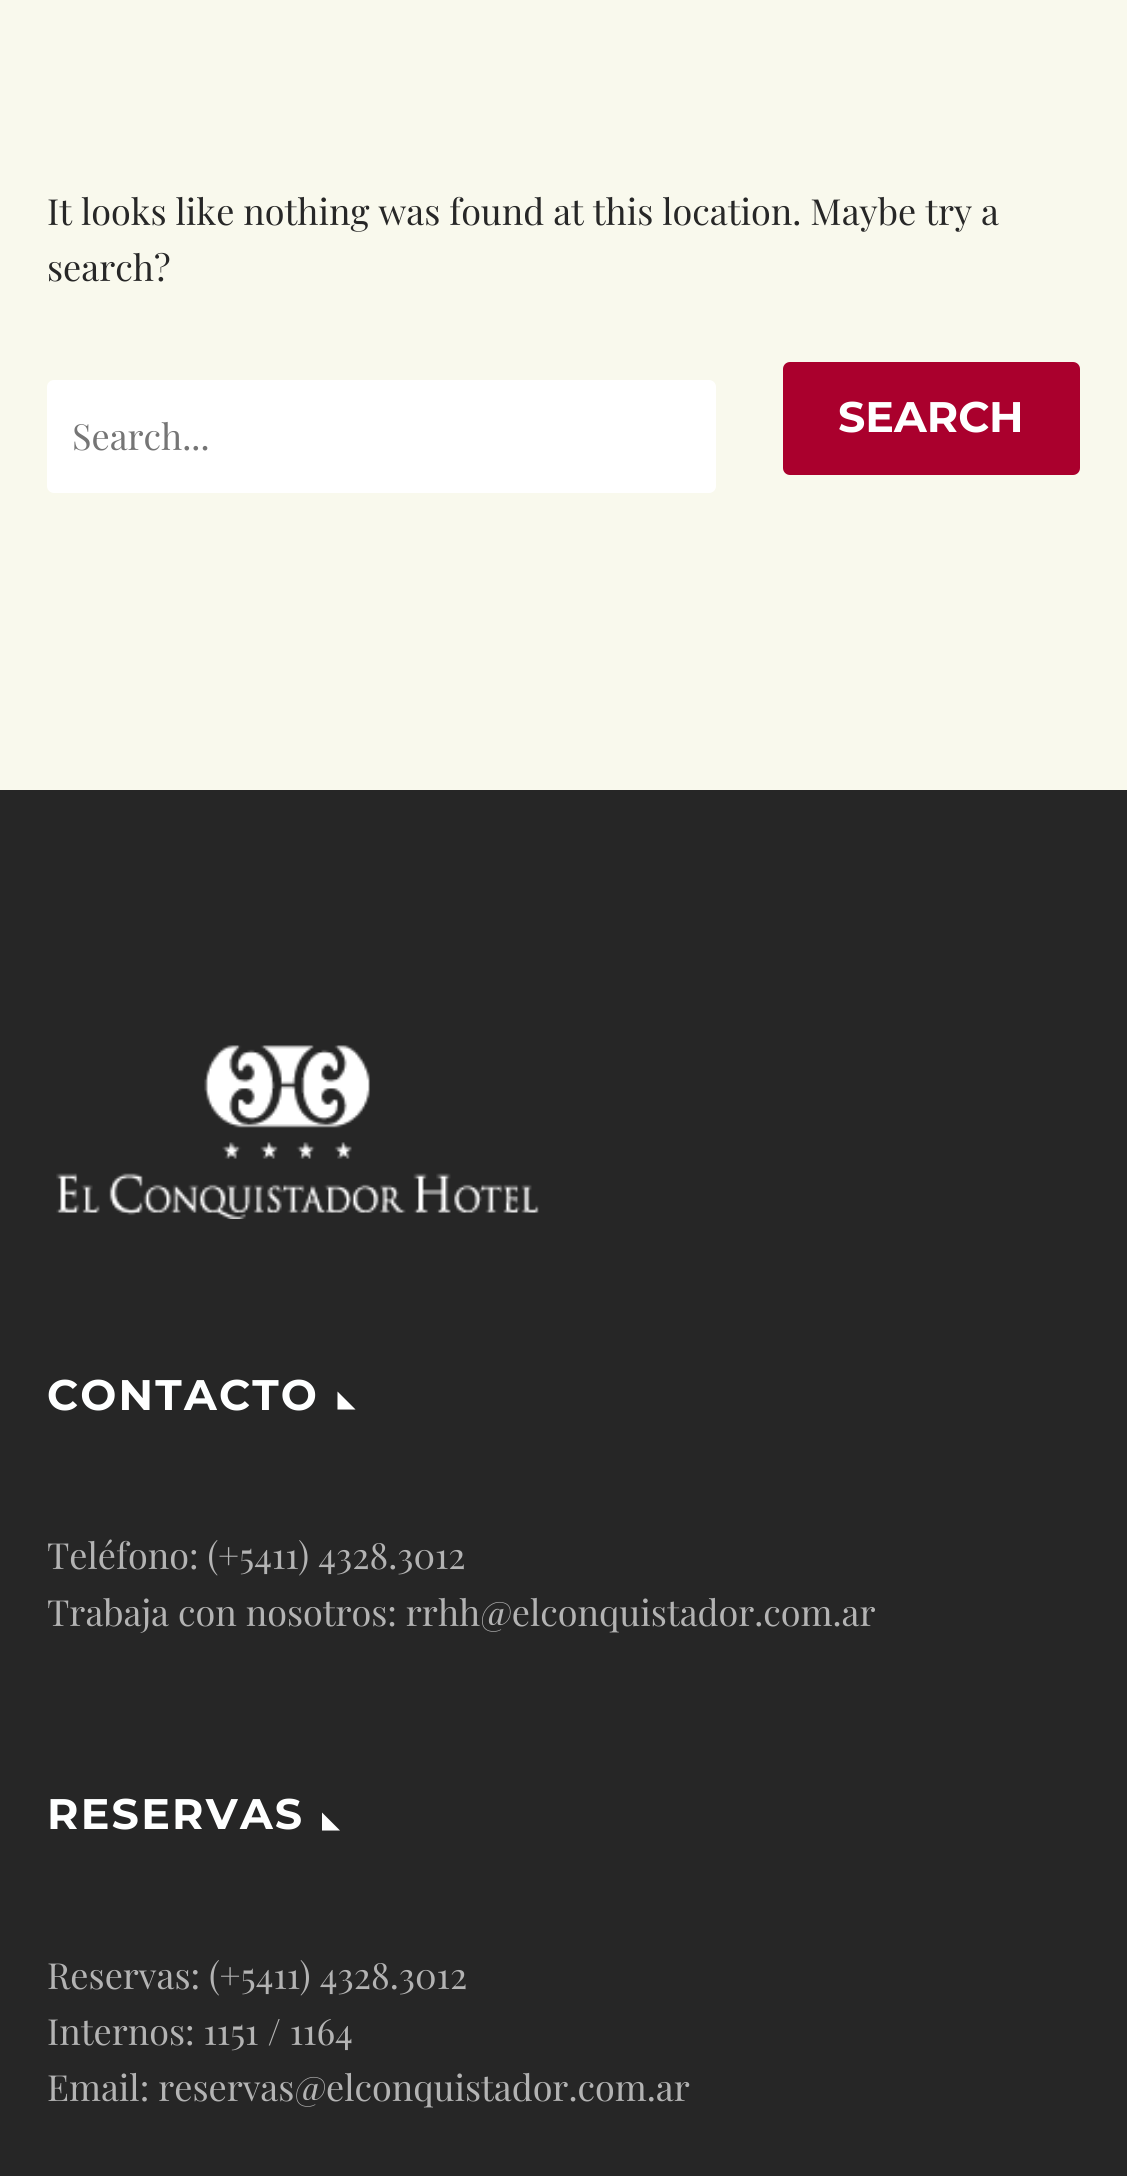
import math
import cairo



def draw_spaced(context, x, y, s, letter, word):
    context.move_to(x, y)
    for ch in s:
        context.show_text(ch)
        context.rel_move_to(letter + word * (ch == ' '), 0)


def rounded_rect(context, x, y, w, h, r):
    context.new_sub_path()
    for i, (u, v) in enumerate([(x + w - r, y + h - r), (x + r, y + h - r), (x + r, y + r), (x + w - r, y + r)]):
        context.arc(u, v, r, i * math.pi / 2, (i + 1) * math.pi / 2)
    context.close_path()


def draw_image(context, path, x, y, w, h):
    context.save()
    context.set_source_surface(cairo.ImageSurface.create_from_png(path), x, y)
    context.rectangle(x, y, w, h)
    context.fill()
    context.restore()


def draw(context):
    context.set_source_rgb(249 / 255, 249 / 255, 237 / 255)
    context.paint()
    context.set_source_rgb(170 / 255, 0, 45 / 255)
    rounded_rect(context, 783, 362, 297, 113, 7)
    context.fill()
    context.set_source_rgb(1, 1, 1)
    rounded_rect(context, 48, 381, 667, 111, 6)
    context.fill_preserve()
    context.stroke()
    context.set_source_rgb(38 / 255, 38 / 255, 38 / 255)
    context.rectangle(0, 790, 1127, 1386)
    context.fill()
    draw_image(context, "images/1.png", 56, 1045, 483, 174)
    context.set_source_rgb(1, 1, 1)
    context.new_path()
    context.move_to(337.5, 1391.5)
    context.line_to(337.5, 1409.5)
    context.line_to(355.5, 1409.5)
    context.close_path()
    context.fill()
    context.new_path()
    context.move_to(322, 1812.5)
    context.line_to(322, 1830.5)
    context.line_to(340, 1830.5)
    context.close_path()
    context.fill()
    context.select_font_face("Playfair Display")
    context.set_font_size(36)
    context.set_source_rgb(39 / 255, 39 / 255, 39 / 255)
    context.move_to(47, 225)
    context.show_text("It looks like nothing was found at this location. Maybe try a")
    context.move_to(47, 281)
    context.show_text("search?")
    context.select_font_face("Montserrat", cairo.FontSlant.NORMAL, cairo.FontWeight.BOLD)
    context.set_font_size(42.75)
    context.set_source_rgb(254 / 255, 1, 1)
    context.move_to(838, 432)
    context.show_text("SEARCH")
    context.select_font_face("Playfair Display")
    context.set_font_size(36)
    context.set_source_rgb(117 / 255, 117 / 255, 117 / 255)
    context.move_to(72, 450)
    context.show_text("Search...")
    context.select_font_face("Montserrat", cairo.FontSlant.NORMAL, cairo.FontWeight.BOLD)
    context.set_font_size(42.75)
    context.set_source_rgb(254 / 255, 1, 1)
    draw_spaced(context, 47, 1410, "CONTACTO", 2.25, 0)
    context.select_font_face("Playfair Display")
    context.set_font_size(36)
    context.set_source_rgb(179 / 255, 179 / 255, 179 / 255)
    context.move_to(47, 1569)
    context.show_text("Teléfono: (+5411) 4328.3012")
    context.move_to(47, 1626)
    context.show_text("Trabaja con nosotros: rrhh@elconquistador.com.ar")
    context.select_font_face("Montserrat", cairo.FontSlant.NORMAL, cairo.FontWeight.BOLD)
    context.set_font_size(42.75)
    context.set_source_rgb(254 / 255, 1, 1)
    draw_spaced(context, 47, 1829, "RESERVAS", 2.25, 0)
    context.select_font_face("Playfair Display")
    context.set_font_size(36)
    context.set_source_rgb(179 / 255, 179 / 255, 179 / 255)
    context.move_to(47, 1989)
    context.show_text("Reservas: (+5411) 4328.3012")
    context.move_to(47, 2045)
    context.show_text("Internos: 1151 / 1164")
    context.move_to(47, 2101)
    context.show_text("Email: reservas@elconquistador.com.ar")


surface = cairo.ImageSurface(cairo.Format.RGB24, 1127, 2176)
context = cairo.Context(surface)
options = cairo.FontOptions()
options.set_hint_metrics(cairo.HintMetrics.OFF)
options.set_hint_style(cairo.HintStyle.NONE)
context.set_font_options(options)
context.set_miter_limit(4)
draw(context)
surface.write_to_png("out.png")
